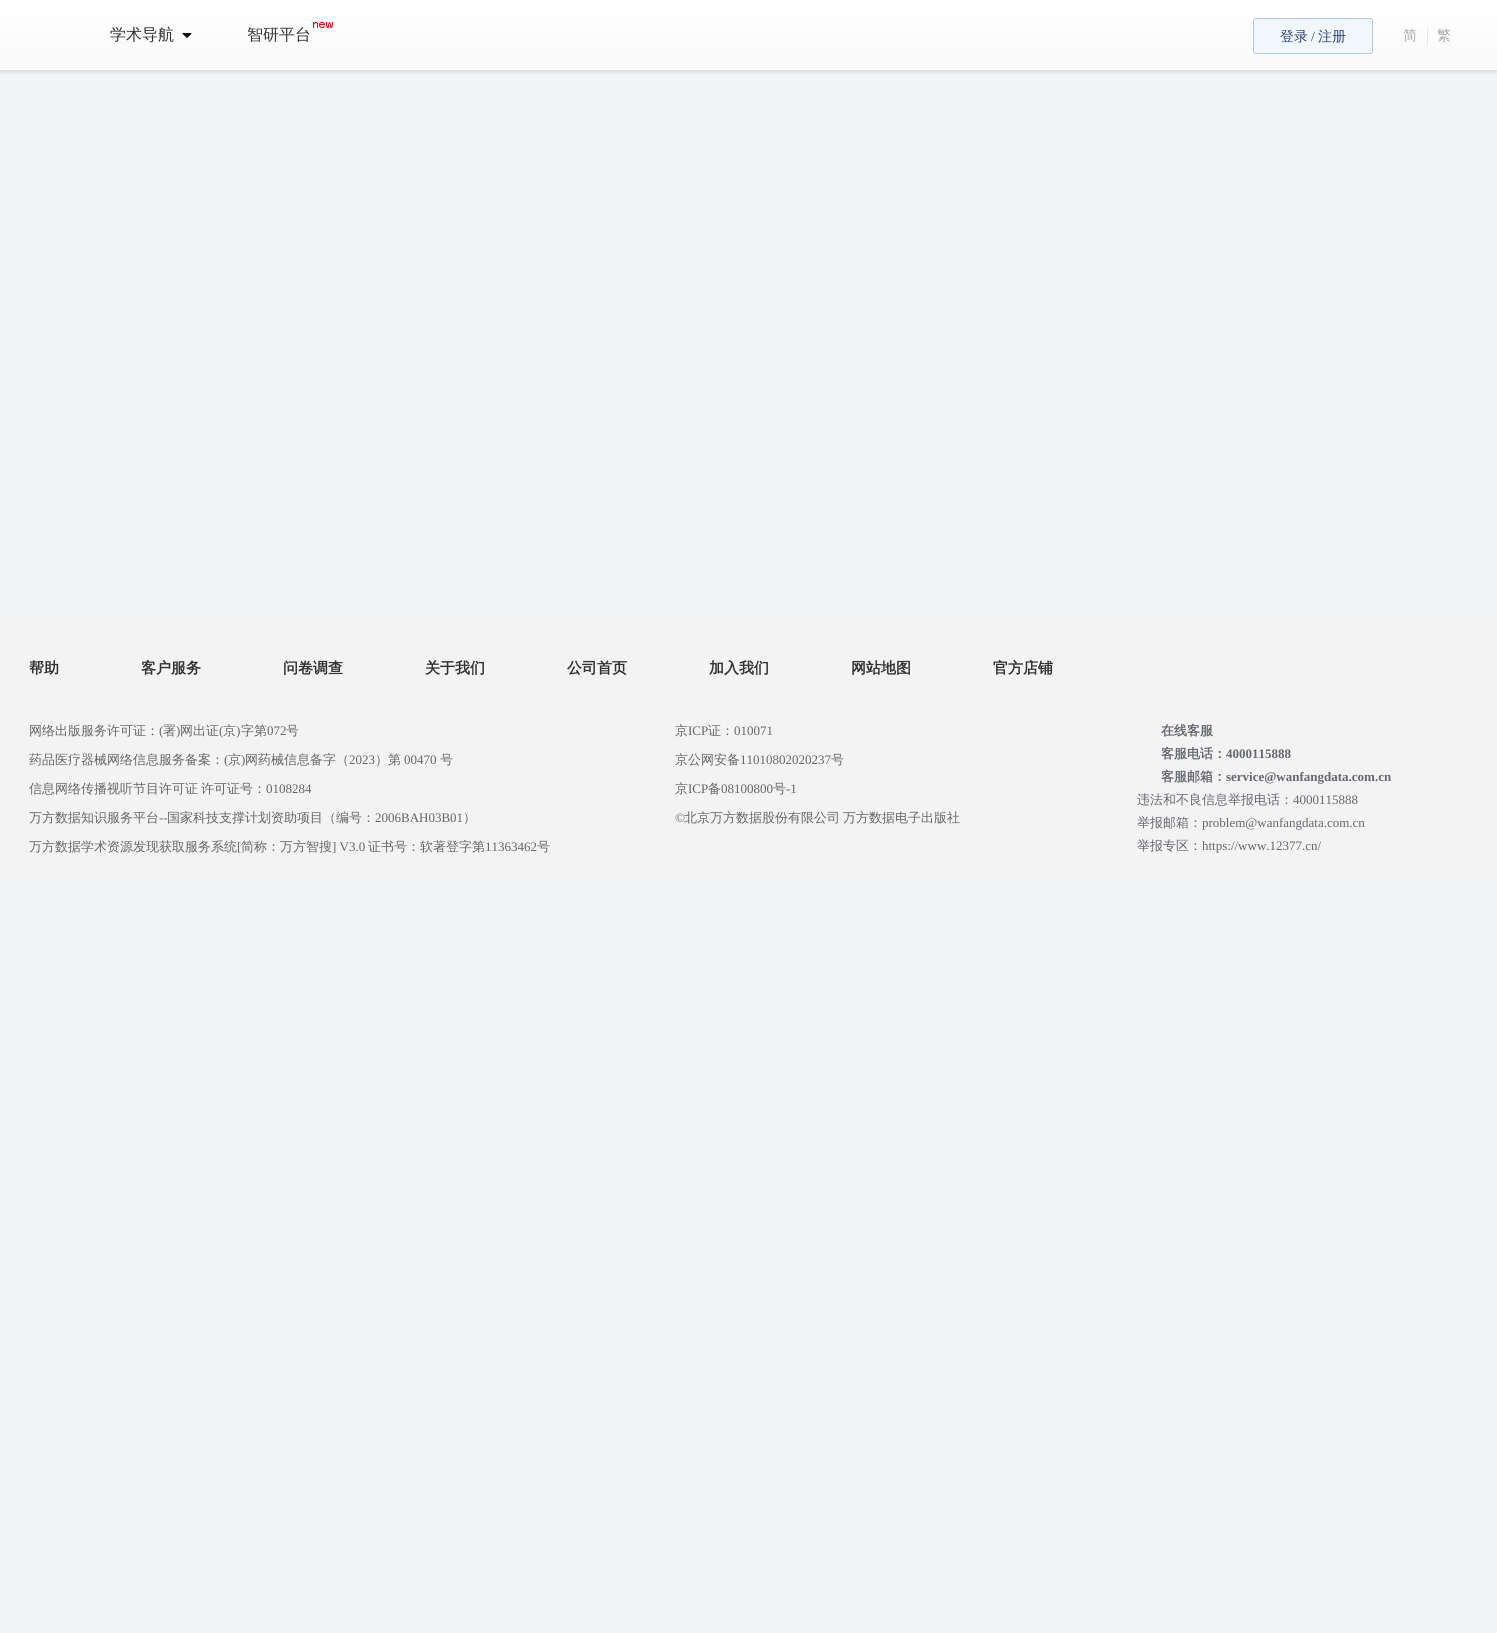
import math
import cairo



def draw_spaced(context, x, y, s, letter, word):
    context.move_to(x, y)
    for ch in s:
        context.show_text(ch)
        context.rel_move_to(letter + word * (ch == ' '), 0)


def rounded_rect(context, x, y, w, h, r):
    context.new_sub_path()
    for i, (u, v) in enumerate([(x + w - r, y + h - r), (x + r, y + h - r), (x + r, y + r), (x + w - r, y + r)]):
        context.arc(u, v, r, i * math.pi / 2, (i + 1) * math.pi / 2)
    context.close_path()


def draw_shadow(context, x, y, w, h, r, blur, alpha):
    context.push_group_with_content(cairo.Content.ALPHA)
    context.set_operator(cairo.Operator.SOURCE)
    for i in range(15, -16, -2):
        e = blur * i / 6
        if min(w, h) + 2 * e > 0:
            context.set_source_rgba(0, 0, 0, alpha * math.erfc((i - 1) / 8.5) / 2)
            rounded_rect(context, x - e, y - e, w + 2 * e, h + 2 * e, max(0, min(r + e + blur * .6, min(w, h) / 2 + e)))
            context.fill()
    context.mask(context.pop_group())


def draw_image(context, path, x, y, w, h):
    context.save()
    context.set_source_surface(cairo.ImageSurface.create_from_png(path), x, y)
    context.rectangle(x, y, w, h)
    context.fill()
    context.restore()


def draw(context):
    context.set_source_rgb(242 / 255, 244 / 255, 247 / 255)
    context.paint()
    context.set_source_rgb(143 / 255, 146 / 255, 153 / 255)
    draw_shadow(context, 0, 2, 1497, 70, 0, 2, 0.28)
    gradient = cairo.LinearGradient(749, 0, 749, 70)
    gradient.add_color_stop_rgba(0, 1, 1, 1, 1)
    gradient.add_color_stop_rgba(1, 249 / 255, 249 / 255, 249 / 255, 1)
    context.set_source(gradient)
    context.rectangle(0, 0, 1497, 70)
    context.fill()
    draw_image(context, "images/1.png", 313, 22, 20, 6)
    draw_image(context, "images/2.png", 182, 33, 10, 5)
    context.set_source_rgb(241 / 255, 247 / 255, 1)
    rounded_rect(context, 1253.5, 18.5, 119, 35, 2.5)
    context.fill_preserve()
    context.set_source_rgb(181 / 255, 200 / 255, 232 / 255)
    context.set_line_width(1)
    context.stroke()
    context.set_source_rgb(233 / 255, 233 / 255, 233 / 255)
    context.rectangle(1427, 28, 1, 18)
    context.fill()
    context.set_source_rgb(243 / 255, 243 / 255, 243 / 255)
    context.rectangle(0, 615, 1497, 264)
    context.fill()
    context.select_font_face("WenQuanYi Zen Hei Medium")
    context.set_font_size(16)
    context.set_source_rgb(50 / 255, 50 / 255, 50 / 255)
    context.move_to(110, 40)
    context.show_text("学术导航")
    context.move_to(247, 40)
    context.show_text("智研平台")
    context.set_font_size(14)
    context.set_source_rgb(50 / 255, 64 / 255, 118 / 255)
    context.move_to(1280, 41)
    context.show_text("登录")
    context.select_font_face("Liberation Serif")
    context.move_to(1311, 41)
    context.show_text("/")
    context.select_font_face("WenQuanYi Zen Hei Medium")
    context.move_to(1318, 41)
    context.show_text("注册")
    context.set_source_rgb(170 / 255, 170 / 255, 170 / 255)
    context.move_to(1403, 40)
    context.show_text("简")
    context.move_to(1437, 40)
    context.show_text("繁")
    context.select_font_face("WenQuanYi Zen Hei", cairo.FontSlant.NORMAL, cairo.FontWeight.BOLD)
    context.set_font_size(15)
    context.set_source_rgb(50 / 255, 50 / 255, 50 / 255)
    context.move_to(29, 673)
    context.show_text("帮助")
    context.move_to(141, 673)
    context.show_text("客户服务")
    context.move_to(283, 673)
    context.show_text("问卷调查")
    context.move_to(425, 673)
    context.show_text("关于我们")
    context.move_to(567, 673)
    context.show_text("公司首页")
    context.move_to(709, 673)
    context.show_text("加入我们")
    context.move_to(851, 673)
    context.show_text("网站地图")
    context.move_to(993, 673)
    context.show_text("官方店铺")
    context.select_font_face("WenQuanYi Zen Hei Medium")
    context.set_font_size(13)
    context.set_source_rgb(102 / 255, 102 / 255, 102 / 255)
    context.move_to(29, 735)
    context.show_text("网络出版服务许可证：")
    context.select_font_face("Liberation Serif")
    context.move_to(159, 735)
    context.show_text("(")
    context.select_font_face("WenQuanYi Zen Hei Medium")
    context.move_to(163, 735)
    context.show_text("署")
    context.select_font_face("Liberation Serif")
    context.move_to(176, 735)
    context.show_text(")")
    context.select_font_face("WenQuanYi Zen Hei Medium")
    context.move_to(180, 735)
    context.show_text("网出证")
    context.select_font_face("Liberation Serif")
    context.move_to(219, 735)
    context.show_text("(")
    context.select_font_face("WenQuanYi Zen Hei Medium")
    context.move_to(223, 735)
    context.show_text("京")
    context.select_font_face("Liberation Serif")
    context.move_to(236, 735)
    context.show_text(")")
    context.select_font_face("WenQuanYi Zen Hei Medium")
    context.move_to(241, 735)
    context.show_text("字第")
    context.select_font_face("Liberation Serif")
    context.move_to(267, 735)
    context.show_text("072")
    context.select_font_face("WenQuanYi Zen Hei Medium")
    context.move_to(286, 735)
    context.show_text("号")
    context.move_to(29, 764)
    context.show_text("药品医疗器械网络信息服务备案：")
    context.select_font_face("Liberation Serif")
    context.move_to(224, 764)
    context.show_text("(")
    context.select_font_face("WenQuanYi Zen Hei Medium")
    context.move_to(228, 764)
    context.show_text("京")
    context.select_font_face("Liberation Serif")
    context.move_to(241, 764)
    context.show_text(")")
    context.select_font_face("WenQuanYi Zen Hei Medium")
    context.move_to(245, 764)
    context.show_text("网药械信息备字（")
    context.select_font_face("Liberation Serif")
    context.move_to(349, 764)
    context.show_text("2023")
    context.select_font_face("WenQuanYi Zen Hei Medium")
    context.move_to(375, 764)
    context.show_text("）第")
    context.select_font_face("Liberation Serif")
    context.move_to(404, 764)
    context.show_text("00470")
    context.select_font_face("WenQuanYi Zen Hei Medium")
    context.move_to(440, 764)
    context.show_text("号")
    draw_spaced(context, 29, 793, "信息网络传播视听节目许可证 许可证号：", 0, -1)
    context.select_font_face("Liberation Serif")
    context.move_to(266, 793)
    context.show_text("0108284")
    context.select_font_face("WenQuanYi Zen Hei Medium")
    context.move_to(29, 822)
    context.show_text("万方数据知识服务平台")
    context.select_font_face("Liberation Serif")
    context.move_to(159, 822)
    context.show_text("--")
    context.select_font_face("WenQuanYi Zen Hei Medium")
    context.move_to(167, 822)
    context.show_text("国家科技支撑计划资助项目（编号：")
    context.select_font_face("Liberation Serif")
    context.move_to(375, 822)
    context.show_text("2006BAH03B01")
    context.select_font_face("WenQuanYi Zen Hei Medium")
    context.move_to(463, 822)
    context.show_text("）")
    context.move_to(29, 851)
    context.show_text("万方数据学术资源发现获取服务系统")
    context.select_font_face("Liberation Serif")
    context.move_to(237, 851)
    context.show_text("[")
    context.select_font_face("WenQuanYi Zen Hei Medium")
    context.move_to(241, 851)
    context.show_text("简称：万方智搜")
    context.select_font_face("Liberation Serif")
    context.move_to(332, 851)
    context.show_text("] V3.0")
    context.select_font_face("WenQuanYi Zen Hei Medium")
    context.move_to(368, 851)
    context.show_text("证书号：软著登字第")
    context.select_font_face("Liberation Serif")
    context.move_to(485, 851)
    context.show_text("11363462")
    context.select_font_face("WenQuanYi Zen Hei Medium")
    context.move_to(537, 851)
    context.show_text("号")
    context.move_to(675, 735)
    context.show_text("京")
    context.select_font_face("Liberation Serif")
    context.move_to(688, 735)
    context.show_text("ICP")
    context.select_font_face("WenQuanYi Zen Hei Medium")
    context.move_to(708, 735)
    context.show_text("证：")
    context.select_font_face("Liberation Serif")
    context.move_to(734, 735)
    context.show_text("010071")
    context.select_font_face("WenQuanYi Zen Hei Medium")
    context.move_to(675, 764)
    context.show_text("京公网安备")
    context.select_font_face("Liberation Serif")
    context.move_to(740, 764)
    context.show_text("11010802020237")
    context.select_font_face("WenQuanYi Zen Hei Medium")
    context.move_to(831, 764)
    context.show_text("号")
    context.move_to(675, 793)
    context.show_text("京")
    context.select_font_face("Liberation Serif")
    context.move_to(688, 793)
    context.show_text("ICP")
    context.select_font_face("WenQuanYi Zen Hei Medium")
    context.move_to(708, 793)
    context.show_text("备")
    context.select_font_face("Liberation Serif")
    context.move_to(721, 793)
    context.show_text("08100800")
    context.select_font_face("WenQuanYi Zen Hei Medium")
    context.move_to(773, 793)
    context.show_text("号")
    context.select_font_face("Liberation Serif")
    context.move_to(786, 793)
    context.show_text("-1")
    context.move_to(675, 822)
    context.show_text("©")
    context.select_font_face("WenQuanYi Zen Hei Medium")
    draw_spaced(context, 684, 822, "北京万方数据股份有限公司 万方数据电子出版社", 0, -1)
    context.select_font_face("WenQuanYi Zen Hei", cairo.FontSlant.NORMAL, cairo.FontWeight.BOLD)
    context.set_source_rgb(101 / 255, 104 / 255, 111 / 255)
    context.move_to(1161, 735)
    context.show_text("在线客服")
    context.move_to(1161, 758)
    context.show_text("客服电话：")
    context.select_font_face("Liberation Serif", cairo.FontSlant.NORMAL, cairo.FontWeight.BOLD)
    context.move_to(1226, 758)
    context.show_text("4000115888")
    context.select_font_face("WenQuanYi Zen Hei", cairo.FontSlant.NORMAL, cairo.FontWeight.BOLD)
    context.move_to(1161, 781)
    context.show_text("客服邮箱：")
    context.select_font_face("Liberation Serif", cairo.FontSlant.NORMAL, cairo.FontWeight.BOLD)
    context.move_to(1226, 781)
    context.show_text("service@wanfangdata.com.cn")
    context.select_font_face("WenQuanYi Zen Hei Medium")
    context.move_to(1137, 804)
    context.show_text("违法和不良信息举报电话：")
    context.select_font_face("Liberation Serif")
    context.move_to(1293, 804)
    context.show_text("4000115888")
    context.select_font_face("WenQuanYi Zen Hei Medium")
    context.move_to(1137, 827)
    context.show_text("举报邮箱：")
    context.select_font_face("Liberation Serif")
    context.move_to(1202, 827)
    context.show_text("problem@wanfangdata.com.cn")
    context.select_font_face("WenQuanYi Zen Hei Medium")
    context.move_to(1137, 850)
    context.show_text("举报专区：")
    context.select_font_face("Liberation Serif")
    context.move_to(1202, 850)
    context.show_text("https://www.12377.cn/")


surface = cairo.ImageSurface(cairo.Format.RGB24, 1497, 1633)
context = cairo.Context(surface)
options = cairo.FontOptions()
options.set_hint_metrics(cairo.HintMetrics.OFF)
options.set_hint_style(cairo.HintStyle.NONE)
context.set_font_options(options)
context.set_miter_limit(4)
draw(context)
surface.write_to_png("out.png")
